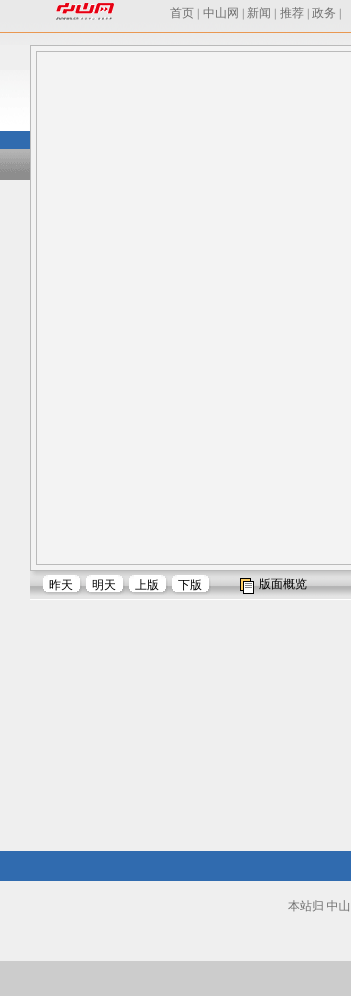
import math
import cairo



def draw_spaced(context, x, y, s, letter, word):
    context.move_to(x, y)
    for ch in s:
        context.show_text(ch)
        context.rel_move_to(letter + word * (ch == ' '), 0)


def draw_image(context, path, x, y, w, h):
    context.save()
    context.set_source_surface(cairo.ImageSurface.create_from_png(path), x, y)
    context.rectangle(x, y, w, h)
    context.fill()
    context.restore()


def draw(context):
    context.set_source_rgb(204 / 255, 204 / 255, 204 / 255)
    context.paint()
    context.set_source_rgb(233 / 255, 233 / 255, 233 / 255)
    context.rectangle(0, 0, 351, 22)
    context.fill()
    draw_image(context, "images/1.png", 56, 3, 58, 17)
    draw_image(context, "images/2.png", 0, 22, 351, 23)
    context.set_source_rgb(239 / 255, 239 / 255, 239 / 255)
    context.rectangle(0, 45, 351, 806)
    context.fill()
    draw_image(context, "images/3.png", 0, 70, 30, 110)
    context.set_source_rgb(243 / 255, 243 / 255, 243 / 255)
    context.rectangle(30.5, 45.5, 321, 525)
    context.fill_preserve()
    context.set_source_rgb(186 / 255, 186 / 255, 186 / 255)
    context.set_line_width(1)
    context.stroke()
    context.rectangle(36.5, 51.5, 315, 513)
    context.stroke()
    draw_image(context, "images/4.png", 30, 571, 6, 28)
    draw_image(context, "images/5.png", 36, 571, 315, 28)
    draw_image(context, "images/6.png", 43, 575, 39, 20)
    draw_image(context, "images/6.png", 86, 575, 39, 20)
    draw_image(context, "images/6.png", 129, 575, 39, 20)
    draw_image(context, "images/6.png", 172, 575, 39, 20)
    draw_image(context, "images/7.png", 240, 578, 14, 16)
    context.set_source_rgb(1, 1, 1)
    context.rectangle(30, 599, 321, 1)
    context.fill()
    context.set_source_rgb(48 / 255, 107 / 255, 175 / 255)
    context.rectangle(0, 851, 351, 30)
    context.fill()
    context.set_source_rgb(239 / 255, 239 / 255, 239 / 255)
    context.rectangle(0, 881, 351, 80)
    context.fill()
    context.select_font_face("WenQuanYi Zen Hei Medium")
    context.set_font_size(12)
    context.set_source_rgb(110 / 255, 110 / 255, 110 / 255)
    context.move_to(170, 17)
    context.show_text("首页")
    context.select_font_face("Liberation Serif")
    context.move_to(197, 17)
    context.show_text("|")
    context.select_font_face("WenQuanYi Zen Hei Medium")
    context.move_to(203, 17)
    context.show_text("中山网")
    context.select_font_face("Liberation Serif")
    context.move_to(242, 17)
    context.show_text("|")
    context.select_font_face("WenQuanYi Zen Hei Medium")
    context.move_to(247, 17)
    context.show_text("新闻")
    context.select_font_face("Liberation Serif")
    context.move_to(274, 17)
    context.show_text("|")
    context.select_font_face("WenQuanYi Zen Hei Medium")
    context.move_to(280, 17)
    context.show_text("推荐")
    context.select_font_face("Liberation Serif")
    context.move_to(307, 17)
    context.show_text("|")
    context.select_font_face("WenQuanYi Zen Hei Medium")
    context.move_to(312, 17)
    context.show_text("政务")
    context.select_font_face("Liberation Serif")
    context.move_to(339, 17)
    context.show_text("|")
    context.select_font_face("WenQuanYi Zen Hei Medium")
    context.set_source_rgb(0, 0, 0)
    context.move_to(49, 589)
    context.show_text("昨天")
    context.move_to(92, 589)
    context.show_text("明天")
    context.move_to(135, 589)
    context.show_text("上版")
    context.move_to(178, 589)
    context.show_text("下版")
    context.move_to(259, 588)
    context.show_text("版面概览")
    context.set_source_rgb(110 / 255, 110 / 255, 110 / 255)
    draw_spaced(context, 288, 910, "本站归 中山", 0, -1)


surface = cairo.ImageSurface(cairo.Format.RGB24, 351, 996)
context = cairo.Context(surface)
options = cairo.FontOptions()
options.set_hint_metrics(cairo.HintMetrics.OFF)
options.set_hint_style(cairo.HintStyle.NONE)
context.set_font_options(options)
context.set_miter_limit(4)
draw(context)
surface.write_to_png("out.png")
